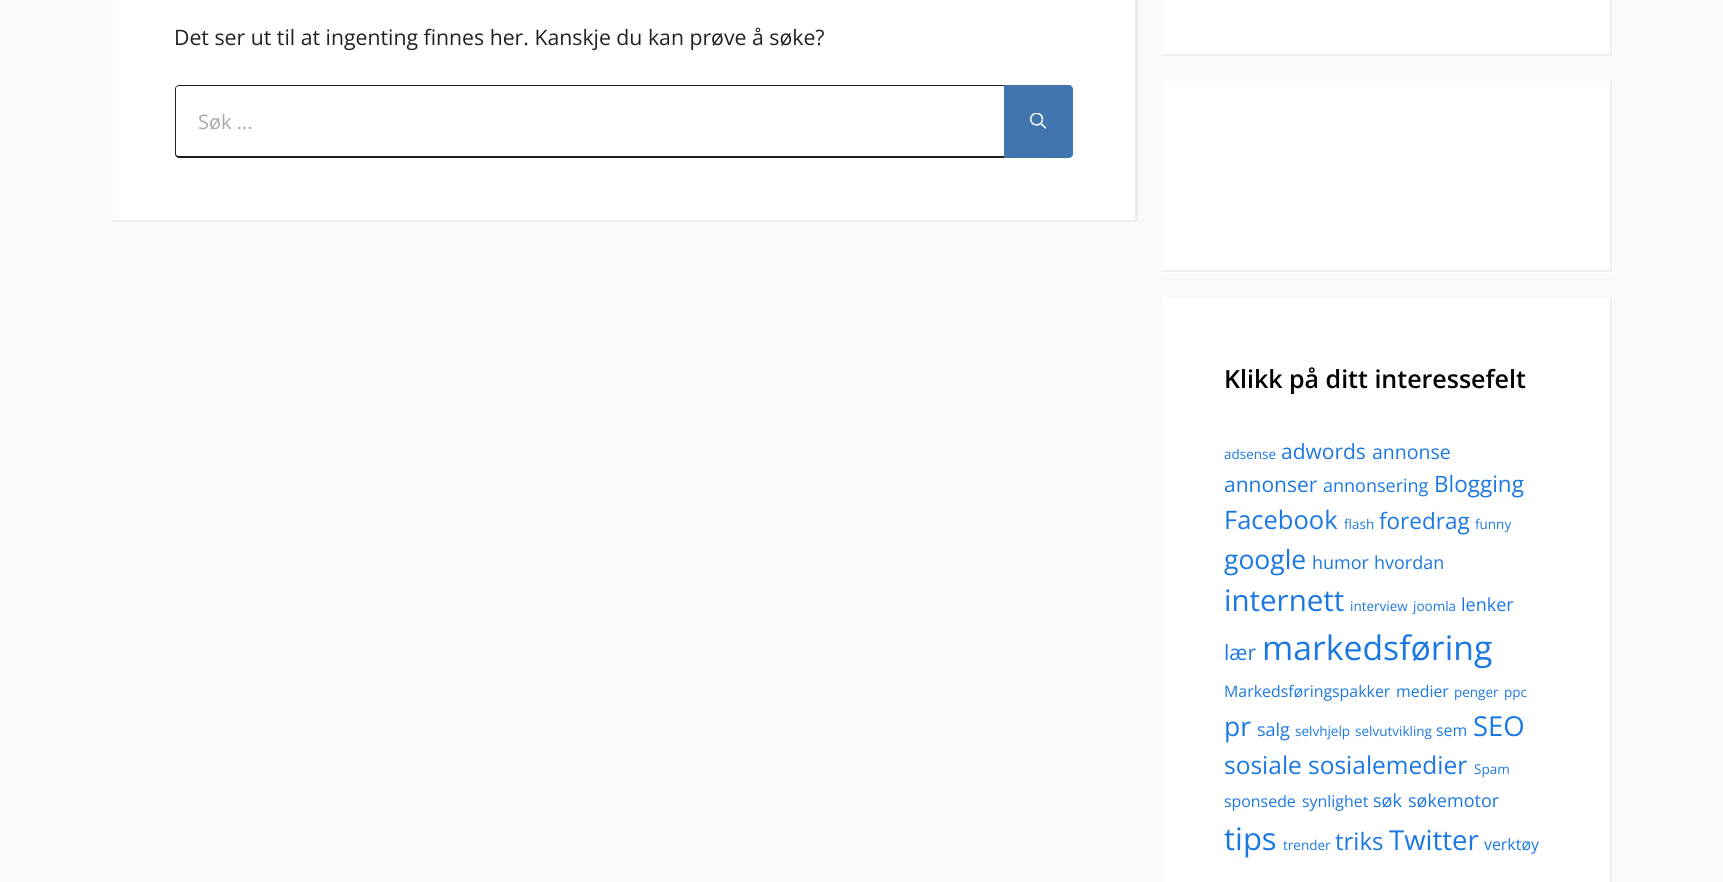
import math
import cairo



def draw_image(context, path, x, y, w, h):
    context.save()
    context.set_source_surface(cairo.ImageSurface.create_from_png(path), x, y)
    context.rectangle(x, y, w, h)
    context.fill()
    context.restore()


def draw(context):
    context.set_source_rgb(250 / 255, 250 / 255, 250 / 255)
    context.paint()
    context.set_source_rgb(1, 1, 1)
    context.rectangle(113, 0, 1025, 223)
    context.fill()
    context.set_source_rgb(237 / 255, 237 / 255, 237 / 255)
    context.new_path()
    context.move_to(1138, -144)
    context.line_to(1138, 222)
    context.line_to(1135, 220)
    context.line_to(1135, -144)
    context.close_path()
    context.fill()
    context.set_source_rgba(0, 0, 0, 0.07)
    context.new_path()
    context.move_to(1138, 222)
    context.line_to(112, 222)
    context.line_to(112, 220)
    context.line_to(1135, 220)
    context.close_path()
    context.fill()
    context.set_source_rgb(33 / 255, 33 / 255, 33 / 255)
    context.set_fill_rule(cairo.FillRule.EVEN_ODD)
    context.new_path()
    context.move_to(179, 85)
    context.line_to(1004, 85)
    context.line_to(1004, 158)
    context.line_to(179, 158)
    context.curve_to(177, 158, 175, 156, 175, 154)
    context.line_to(175, 89)
    context.curve_to(175, 87, 177, 85, 179, 85)
    context.close_path()
    context.move_to(179, 86)
    context.line_to(1004, 86)
    context.line_to(1004, 156)
    context.line_to(179, 156)
    context.curve_to(177, 156, 176, 155, 176, 154)
    context.line_to(176, 89)
    context.curve_to(176, 87, 177, 86, 179, 86)
    context.close_path()
    context.fill()
    context.set_source_rgb(64 / 255, 118 / 255, 173 / 255)
    context.new_path()
    context.move_to(1004, 85)
    context.line_to(1069, 85)
    context.curve_to(1071, 85, 1073, 87, 1073, 89)
    context.line_to(1073, 154)
    context.curve_to(1073, 156, 1071, 158, 1069, 158)
    context.line_to(1004, 158)
    context.close_path()
    context.fill()
    draw_image(context, "images/1.png", 1030, 113, 16, 16)
    context.set_source_rgb(1, 1, 1)
    context.rectangle(1163, 0, 450, 56)
    context.fill()
    context.set_source_rgb(237 / 255, 237 / 255, 237 / 255)
    context.set_fill_rule(cairo.FillRule.WINDING)
    context.new_path()
    context.move_to(1612, -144)
    context.line_to(1612, 56)
    context.line_to(1610, 54)
    context.line_to(1610, -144)
    context.close_path()
    context.fill()
    context.set_source_rgba(0, 0, 0, 0.07)
    context.new_path()
    context.move_to(1612, 56)
    context.line_to(1162, 56)
    context.line_to(1162, 54)
    context.line_to(1610, 54)
    context.close_path()
    context.fill()
    context.set_source_rgb(1, 1, 1)
    context.rectangle(1163, 81, 450, 192)
    context.fill()
    context.set_source_rgb(237 / 255, 237 / 255, 237 / 255)
    context.new_path()
    context.move_to(1612, 81)
    context.line_to(1612, 272)
    context.line_to(1610, 270)
    context.line_to(1610, 81)
    context.close_path()
    context.fill()
    context.set_source_rgba(0, 0, 0, 0.07)
    context.new_path()
    context.move_to(1612, 272)
    context.line_to(1162, 272)
    context.line_to(1162, 270)
    context.line_to(1610, 270)
    context.close_path()
    context.fill()
    context.set_source_rgb(1, 1, 1)
    context.rectangle(1163, 298, 450, 584)
    context.fill()
    context.set_source_rgb(237 / 255, 237 / 255, 237 / 255)
    context.new_path()
    context.move_to(1612, 298)
    context.line_to(1612, 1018)
    context.line_to(1610, 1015)
    context.line_to(1610, 298)
    context.close_path()
    context.fill()
    context.select_font_face("Open Sans")
    context.set_font_size(21.25)
    context.set_source_rgb(33 / 255, 33 / 255, 33 / 255)
    context.move_to(174, 45)
    context.show_text("Det ser ut til at ingenting finnes her. Kanskje du kan prøve å søke?")
    context.set_font_size(20)
    context.set_source_rgb(169 / 255, 169 / 255, 169 / 255)
    context.move_to(198, 129)
    context.show_text("Søk …")
    context.select_font_face("Open Sans SemiBold")
    context.set_font_size(25)
    context.set_source_rgb(0, 0, 0)
    context.move_to(1224, 388)
    context.show_text("Klikk på ditt interessefelt")
    context.select_font_face("Open Sans")
    context.set_font_size(13.5)
    context.set_source_rgb(27 / 255, 120 / 255, 226 / 255)
    context.move_to(1224, 459)
    context.show_text("adsense")
    context.set_font_size(21)
    context.move_to(1281, 459)
    context.show_text("adwords")
    context.set_font_size(19.5)
    context.move_to(1372, 459)
    context.show_text("annonse")
    context.set_font_size(21)
    context.move_to(1224, 492)
    context.show_text("annonser")
    context.set_font_size(18)
    context.move_to(1323, 492)
    context.show_text("annonsering")
    context.set_font_size(22.5)
    context.move_to(1434, 492)
    context.show_text("Blogging")
    context.set_font_size(25.5)
    context.move_to(1224, 529)
    context.show_text("Facebook")
    context.set_font_size(13.5)
    context.move_to(1344, 529)
    context.show_text("flash")
    context.set_font_size(22.5)
    context.move_to(1379, 529)
    context.show_text("foredrag")
    context.set_font_size(13.5)
    context.move_to(1475, 529)
    context.show_text("funny")
    context.set_font_size(26.5)
    context.move_to(1224, 569)
    context.show_text("google")
    context.set_font_size(18)
    context.move_to(1312, 569)
    context.show_text("humor")
    context.move_to(1374, 569)
    context.show_text("hvordan")
    context.set_font_size(29.5)
    context.move_to(1224, 611)
    context.show_text("internett")
    context.set_font_size(13.5)
    context.move_to(1350, 611)
    context.show_text("interview")
    context.move_to(1413, 611)
    context.show_text("joomla")
    context.set_font_size(18)
    context.move_to(1461, 611)
    context.show_text("lenker")
    context.set_font_size(21)
    context.move_to(1224, 660)
    context.show_text("lær")
    context.set_font_size(33.75)
    context.move_to(1262, 660)
    context.show_text("markedsføring")
    context.set_font_size(15.9)
    context.move_to(1224, 697)
    context.show_text("Markedsføringspakker")
    context.move_to(1396, 697)
    context.show_text("medier")
    context.set_font_size(13.5)
    context.move_to(1454, 697)
    context.show_text("penger")
    context.move_to(1504, 697)
    context.show_text("ppc")
    context.set_font_size(26.5)
    context.move_to(1224, 736)
    context.show_text("pr")
    context.set_font_size(18)
    context.move_to(1257, 736)
    context.show_text("salg")
    context.set_font_size(13.5)
    context.move_to(1295, 736)
    context.show_text("selvhjelp")
    context.move_to(1355, 736)
    context.show_text("selvutvikling")
    context.set_font_size(15.9)
    context.move_to(1436, 736)
    context.show_text("sem")
    context.set_font_size(27.5)
    context.move_to(1473, 736)
    context.show_text("SEO")
    context.set_font_size(24.5)
    context.move_to(1224, 774)
    context.show_text("sosiale")
    context.move_to(1308, 774)
    context.show_text("sosialemedier")
    context.set_font_size(13.5)
    context.move_to(1474, 774)
    context.show_text("Spam")
    context.set_font_size(15.9)
    context.move_to(1224, 807)
    context.show_text("sponsede")
    context.move_to(1302, 807)
    context.show_text("synlighet")
    context.set_font_size(18)
    context.move_to(1373, 807)
    context.show_text("søk")
    context.move_to(1408, 807)
    context.show_text("søkemotor")
    context.set_font_size(31)
    context.move_to(1224, 850)
    context.show_text("tips")
    context.set_font_size(13.5)
    context.move_to(1283, 850)
    context.show_text("trender")
    context.set_font_size(24)
    context.move_to(1335, 850)
    context.show_text("triks")
    context.set_font_size(27.5)
    context.move_to(1389, 850)
    context.show_text("Twitter")
    context.set_font_size(15.9)
    context.move_to(1484, 850)
    context.show_text("verktøy")


surface = cairo.ImageSurface(cairo.Format.RGB24, 1723, 882)
context = cairo.Context(surface)
options = cairo.FontOptions()
options.set_hint_metrics(cairo.HintMetrics.OFF)
options.set_hint_style(cairo.HintStyle.NONE)
context.set_font_options(options)
context.set_miter_limit(4)
draw(context)
surface.write_to_png("out.png")
